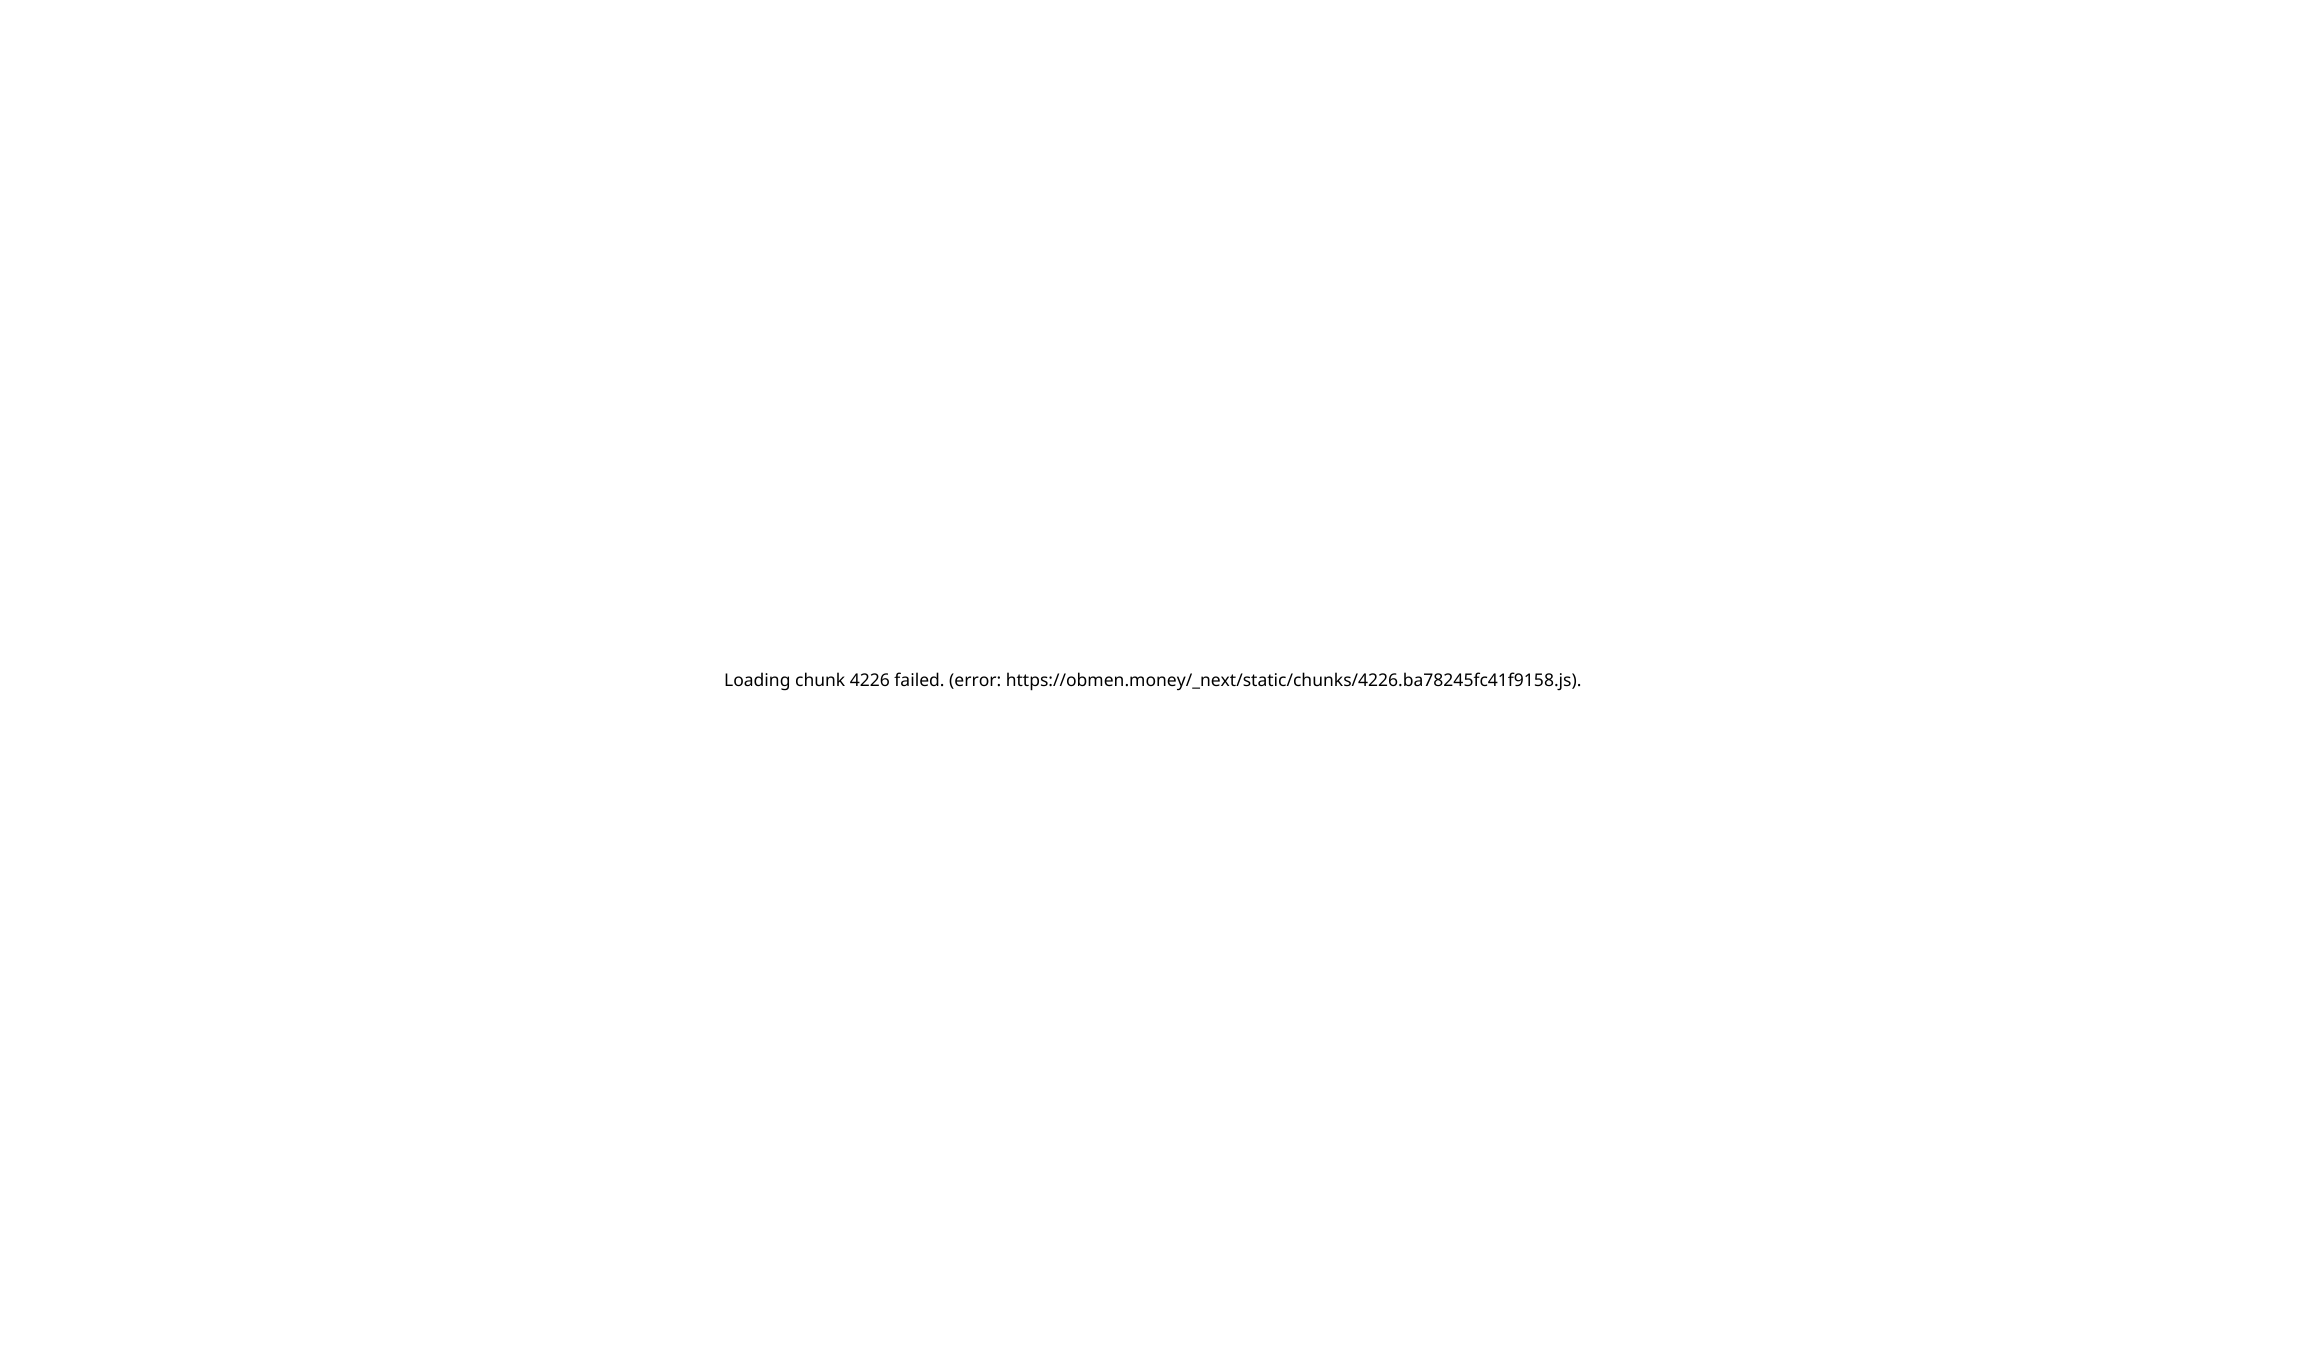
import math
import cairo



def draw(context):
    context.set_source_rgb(1, 1, 1)
    context.paint()
    context.select_font_face("Noto Sans")
    context.set_font_size(17.5)
    context.set_source_rgb(0, 0, 0)
    context.move_to(724, 686)
    context.show_text("Loading chunk 4226 failed. (error: https://obmen.money/_next/static/chunks/4226.ba78245fc41f9158.js).")


surface = cairo.ImageSurface(cairo.Format.RGB24, 2306, 1358)
context = cairo.Context(surface)
options = cairo.FontOptions()
options.set_hint_metrics(cairo.HintMetrics.OFF)
options.set_hint_style(cairo.HintStyle.NONE)
context.set_font_options(options)
context.set_miter_limit(4)
draw(context)
surface.write_to_png("out.png")
